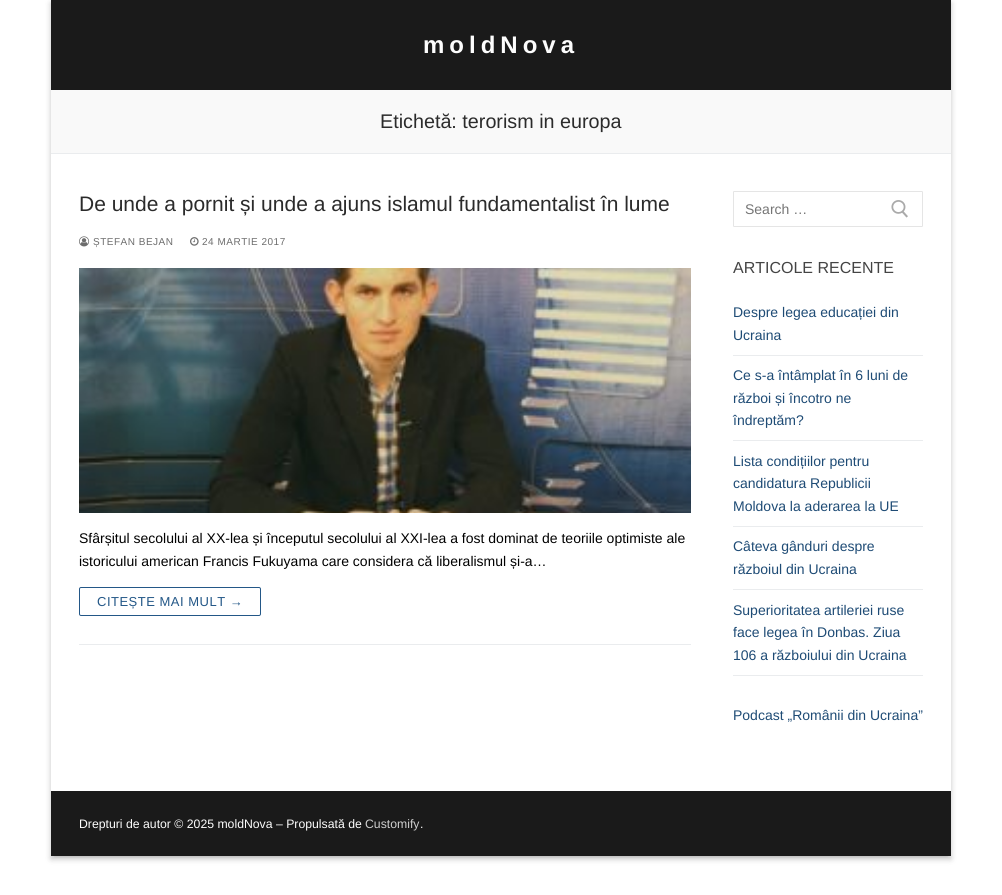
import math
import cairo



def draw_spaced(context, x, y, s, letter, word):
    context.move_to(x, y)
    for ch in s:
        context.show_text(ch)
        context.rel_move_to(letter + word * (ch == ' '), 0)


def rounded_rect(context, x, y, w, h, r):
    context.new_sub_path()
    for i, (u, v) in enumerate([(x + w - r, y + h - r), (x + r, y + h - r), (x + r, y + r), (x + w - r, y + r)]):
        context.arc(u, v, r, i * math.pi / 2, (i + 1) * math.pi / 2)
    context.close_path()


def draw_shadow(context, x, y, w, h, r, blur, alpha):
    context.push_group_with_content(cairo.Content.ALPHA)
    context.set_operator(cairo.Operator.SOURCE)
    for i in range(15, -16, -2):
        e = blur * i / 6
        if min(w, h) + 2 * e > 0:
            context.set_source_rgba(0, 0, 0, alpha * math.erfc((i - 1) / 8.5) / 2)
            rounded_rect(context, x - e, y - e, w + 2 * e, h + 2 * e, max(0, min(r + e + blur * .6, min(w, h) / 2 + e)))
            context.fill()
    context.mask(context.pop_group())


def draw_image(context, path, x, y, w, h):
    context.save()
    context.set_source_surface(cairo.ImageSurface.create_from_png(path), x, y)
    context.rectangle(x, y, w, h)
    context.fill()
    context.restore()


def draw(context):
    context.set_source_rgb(1, 1, 1)
    context.paint()
    context.save()
    context.set_fill_rule(cairo.FillRule.EVEN_ODD)
    context.new_path()
    context.move_to(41, 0)
    context.line_to(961, 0)
    context.line_to(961, 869)
    context.line_to(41, 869)
    context.close_path()
    context.move_to(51, 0)
    context.line_to(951, 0)
    context.line_to(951, 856)
    context.line_to(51, 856)
    context.close_path()
    context.clip()
    context.set_source_rgb(0, 0, 0)
    draw_shadow(context, 51, 3, 900, 856, 0, 3, 0.23)
    context.restore()
    context.save()
    context.rectangle(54, 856, 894, 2)
    context.clip()
    context.set_source_rgb(0, 0, 0)
    draw_shadow(context, 55, 7, 892, 848, 0, 3, 0.16)
    context.restore()
    context.set_source_rgb(26 / 255, 26 / 255, 26 / 255)
    context.rectangle(51, 0, 900, 90)
    context.fill()
    context.set_source_rgb(249 / 255, 249 / 255, 249 / 255)
    context.rectangle(51, 90, 900, 63)
    context.fill()
    context.set_source_rgb(234 / 255, 236 / 255, 238 / 255)
    context.rectangle(51, 153, 900, 1)
    context.fill()
    context.rectangle(79, 644, 612, 1)
    context.fill()
    draw_image(context, "images/1.png", 79, 236, 11, 11)
    draw_image(context, "images/2.png", 190, 237, 9, 9)
    draw_image(context, "images/3.png", 79, 268, 612, 245)
    rounded_rect(context, 79.5, 587.5, 181, 28, 1.5)
    context.set_source_rgb(35 / 255, 87 / 255, 135 / 255)
    context.set_line_width(1)
    context.stroke()
    rounded_rect(context, 733.5, 191.5, 189, 35, 0.5)
    context.set_source_rgb(229 / 255, 229 / 255, 229 / 255)
    context.stroke()
    draw_image(context, "images/4.png", 891, 200, 17, 18)
    context.set_source_rgb(234 / 255, 236 / 255, 238 / 255)
    context.rectangle(733, 355, 190, 1)
    context.fill()
    context.rectangle(733, 440, 190, 1)
    context.fill()
    context.rectangle(733, 526, 190, 1)
    context.fill()
    context.rectangle(733, 589, 190, 1)
    context.fill()
    context.rectangle(733, 675, 190, 1)
    context.fill()
    context.set_source_rgb(26 / 255, 26 / 255, 26 / 255)
    context.rectangle(51, 791, 900, 65)
    context.fill()
    context.select_font_face("Liberation Sans", cairo.FontSlant.NORMAL, cairo.FontWeight.BOLD)
    context.set_font_size(24)
    context.set_source_rgb(253 / 255, 253 / 255, 253 / 255)
    draw_spaced(context, 423, 53, "moldNova", 5, 0)
    context.select_font_face("Liberation Sans")
    context.set_font_size(19.75)
    context.set_source_rgb(43 / 255, 43 / 255, 43 / 255)
    context.move_to(380, 128)
    context.show_text("Etichetă: terorism in europa")
    context.set_font_size(21)
    context.move_to(79, 211)
    context.show_text("De unde a pornit și unde a ajuns islamul fundamentalist în lume")
    context.set_font_size(10)
    context.set_source_rgb(109 / 255, 109 / 255, 109 / 255)
    draw_spaced(context, 93, 245, "ȘTEFAN BEJAN", 0.5, 0)
    draw_spaced(context, 202, 245, "24 MARTIE 2017", 0.5, 0)
    context.set_font_size(14)
    context.set_source_rgb(0, 0, 0)
    context.move_to(79, 543)
    context.show_text("Sfârșitul secolului al XX-lea și începutul secolului al XXI-lea a fost dominat de teoriile optimiste ale")
    context.move_to(79, 566)
    context.show_text("istoricului american Francis Fukuyama care considera că liberalismul și-a…")
    context.set_font_size(13)
    context.set_source_rgb(35 / 255, 87 / 255, 135 / 255)
    draw_spaced(context, 97, 606, "CITEȘTE MAI MULT →", 0.5, 0)
    context.set_font_size(14)
    context.set_source_rgb(117 / 255, 117 / 255, 117 / 255)
    context.move_to(745, 214)
    context.show_text("Search …")
    context.set_font_size(16)
    context.set_source_rgb(68 / 255, 68 / 255, 68 / 255)
    context.move_to(733, 273)
    context.show_text("ARTICOLE RECENTE")
    context.set_font_size(14)
    context.set_source_rgb(30 / 255, 75 / 255, 117 / 255)
    context.move_to(733, 317)
    context.show_text("Despre legea educației din")
    context.move_to(733, 340)
    context.show_text("Ucraina")
    context.move_to(733, 380)
    context.show_text("Ce s-a întâmplat în 6 luni de")
    context.move_to(733, 403)
    context.show_text("război și încotro ne")
    context.move_to(733, 425)
    context.show_text("îndreptăm?")
    context.move_to(733, 466)
    context.show_text("Lista condițiilor pentru")
    context.move_to(733, 488)
    context.show_text("candidatura Republicii")
    context.move_to(733, 511)
    context.show_text("Moldova la aderarea la UE")
    context.move_to(733, 551)
    context.show_text("Câteva gânduri despre")
    context.move_to(733, 574)
    context.show_text("războiul din Ucraina")
    context.move_to(733, 615)
    context.show_text("Superioritatea artileriei ruse")
    context.move_to(733, 637)
    context.show_text("face legea în Donbas. Ziua")
    context.move_to(733, 660)
    context.show_text("106 a războiului din Ucraina")
    context.move_to(733, 720)
    context.show_text("Podcast „Românii din Ucraina”")
    context.set_font_size(12.25)
    context.set_source_rgb(253 / 255, 253 / 255, 253 / 255)
    context.move_to(79, 828)
    context.show_text("Drepturi de autor © 2025 moldNova – Propulsată de")
    context.set_source_rgb(207 / 255, 207 / 255, 207 / 255)
    context.move_to(365, 828)
    context.show_text("Customify")
    context.set_source_rgb(253 / 255, 253 / 255, 253 / 255)
    context.move_to(420, 828)
    context.show_text(".")


surface = cairo.ImageSurface(cairo.Format.RGB24, 1002, 895)
context = cairo.Context(surface)
options = cairo.FontOptions()
options.set_hint_metrics(cairo.HintMetrics.OFF)
options.set_hint_style(cairo.HintStyle.NONE)
context.set_font_options(options)
context.set_miter_limit(4)
draw(context)
surface.write_to_png("out.png")
